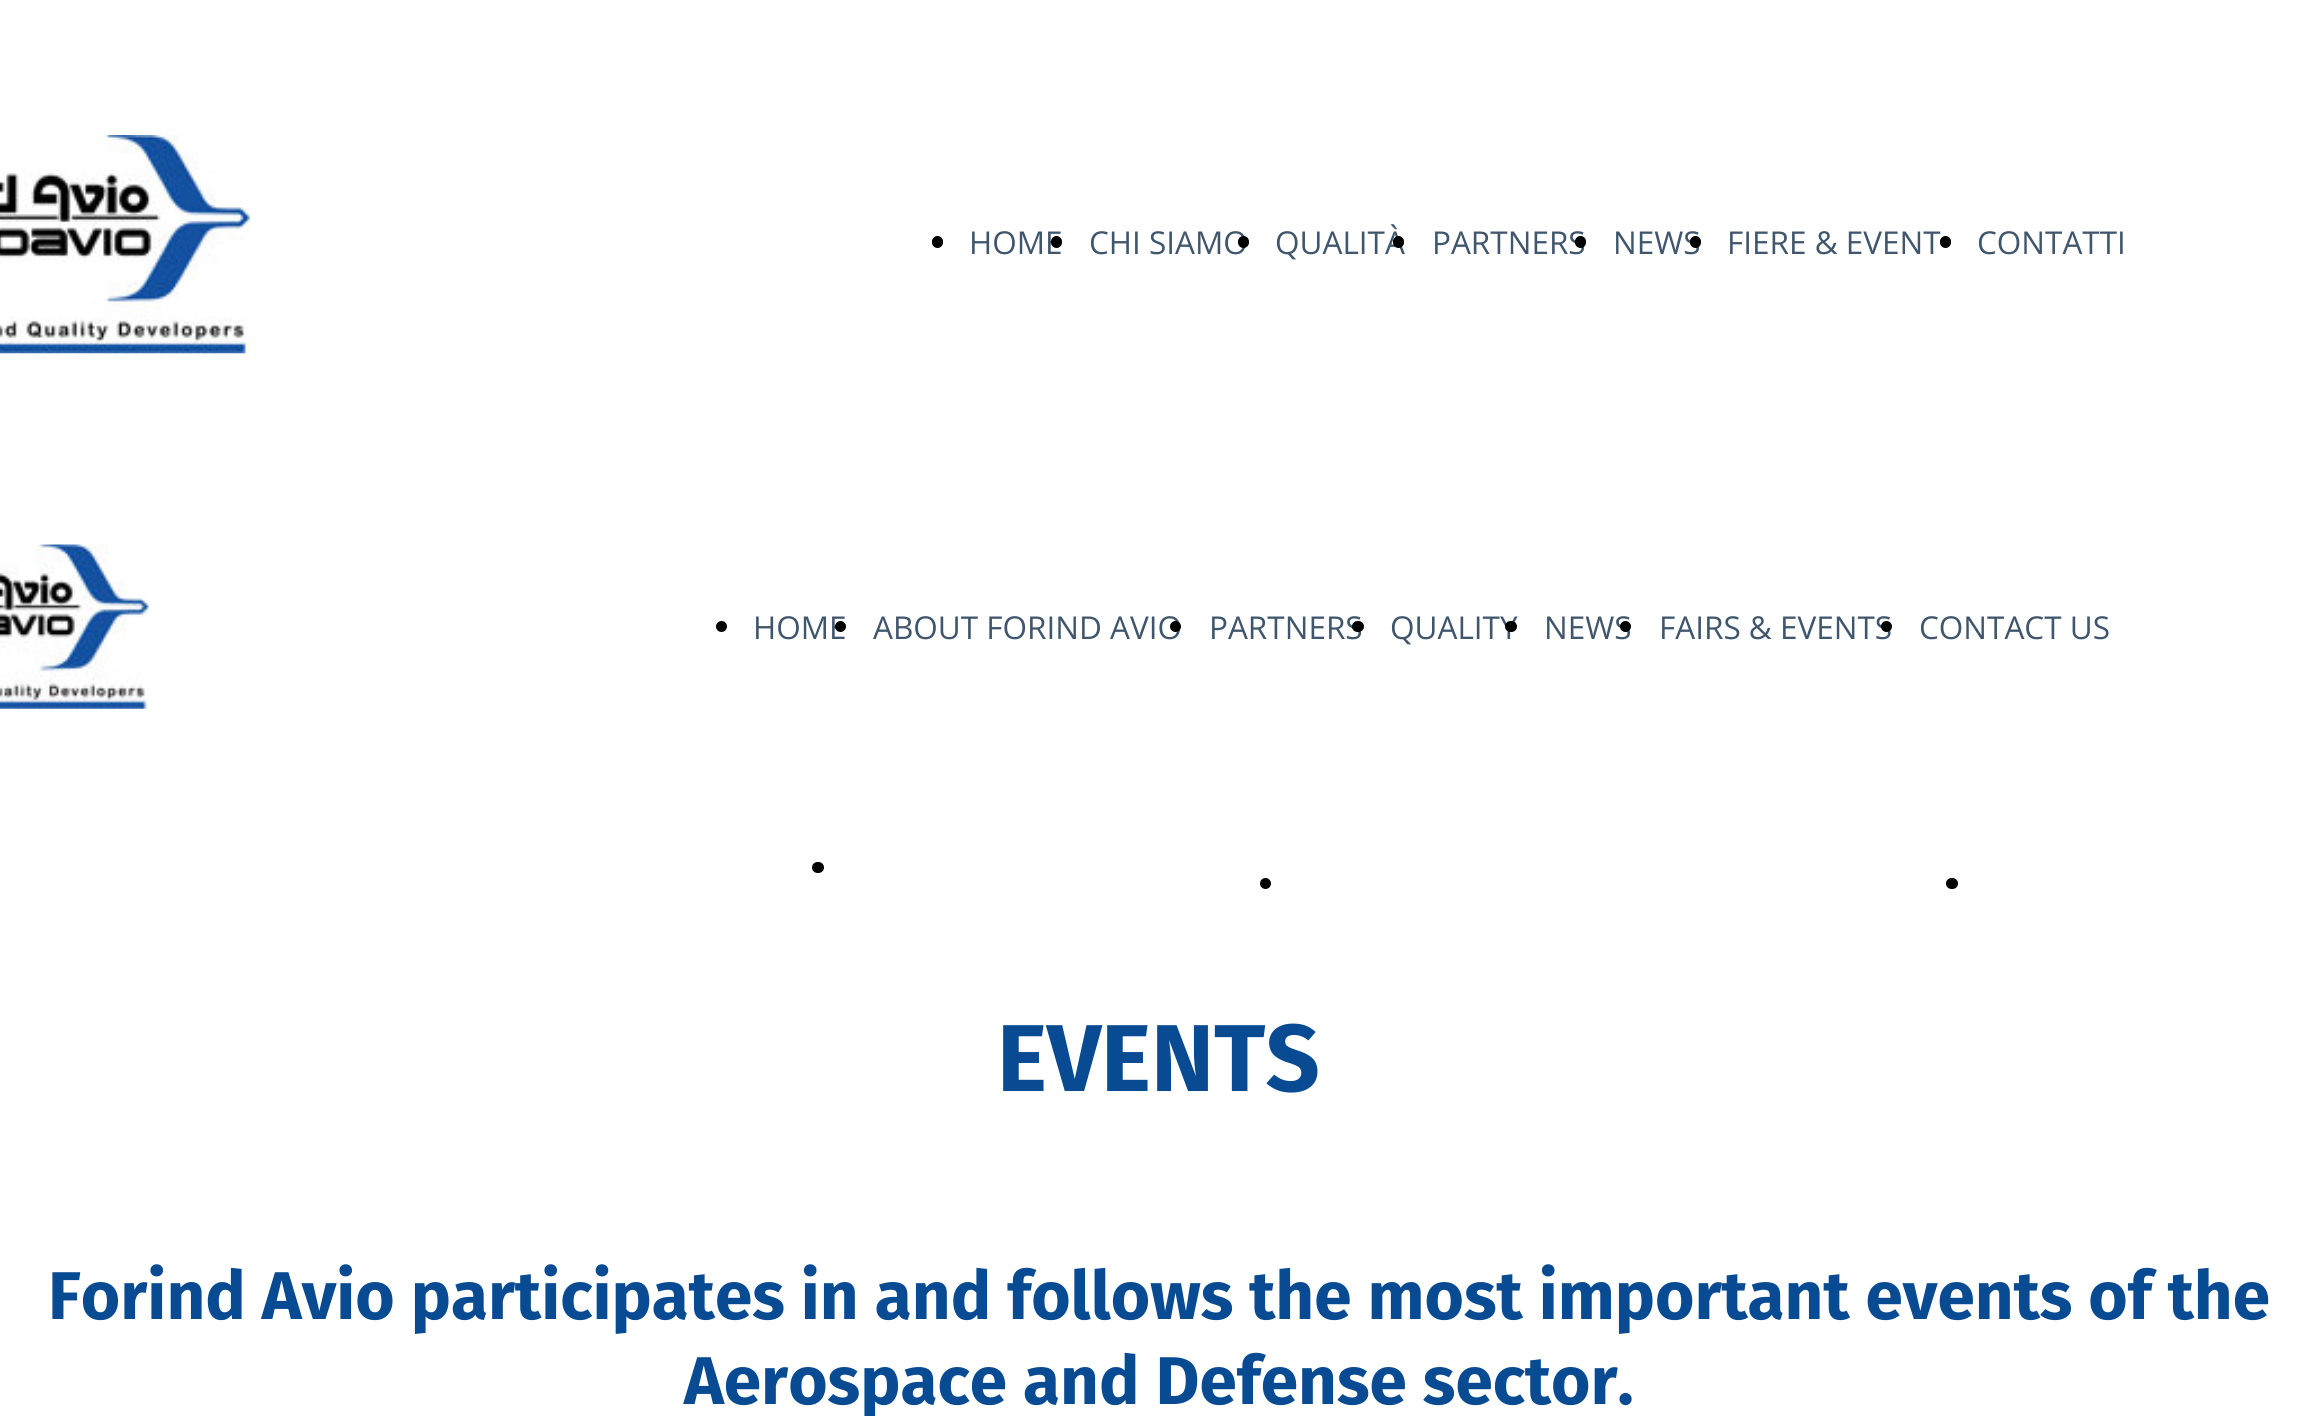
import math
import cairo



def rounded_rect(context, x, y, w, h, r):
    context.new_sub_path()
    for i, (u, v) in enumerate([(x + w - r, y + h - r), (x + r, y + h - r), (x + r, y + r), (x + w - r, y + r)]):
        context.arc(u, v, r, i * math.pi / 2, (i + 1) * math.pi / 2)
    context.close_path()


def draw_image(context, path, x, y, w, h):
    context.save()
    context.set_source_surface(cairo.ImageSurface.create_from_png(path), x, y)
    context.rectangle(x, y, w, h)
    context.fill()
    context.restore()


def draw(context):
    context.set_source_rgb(1, 1, 1)
    context.paint()
    draw_image(context, "images/1.png", 0, 135, 250, 219)
    context.set_source_rgb(0, 0, 0)
    rounded_rect(context, 932, 236, 11, 12, 5.5)
    context.fill()
    draw_image(context, "images/2.png", 0, 544, 149, 165)
    context.arc(721.5, 626.5, 5.5, 0, 2 * math.pi)
    context.fill()
    rounded_rect(context, 812, 862, 12, 11, 5.5)
    context.fill()
    context.arc(1265.5, 883.5, 5.5, 0, 2 * math.pi)
    context.fill()
    rounded_rect(context, 1946, 878, 12, 11, 5.5)
    context.fill()
    context.select_font_face("Open Sans")
    context.set_font_size(31.5)
    context.set_source_rgb(64 / 255, 86 / 255, 108 / 255)
    context.move_to(969, 254)
    context.show_text("HOME")
    context.set_source_rgb(0, 0, 0)
    rounded_rect(context, 1051, 236, 11, 12, 5.5)
    context.fill()
    context.set_source_rgb(64 / 255, 86 / 255, 108 / 255)
    context.move_to(1089, 254)
    context.show_text("CHI SIAMO")
    context.set_source_rgb(0, 0, 0)
    rounded_rect(context, 1238, 236, 11, 12, 5.5)
    context.fill()
    context.set_source_rgb(64 / 255, 86 / 255, 108 / 255)
    context.move_to(1275, 254)
    context.show_text("QUALITÀ")
    context.set_source_rgb(0, 0, 0)
    rounded_rect(context, 1393, 236, 11, 12, 5.5)
    context.fill()
    context.set_source_rgb(64 / 255, 86 / 255, 108 / 255)
    context.move_to(1432, 254)
    context.show_text("PARTNERS")
    context.set_source_rgb(0, 0, 0)
    rounded_rect(context, 1575, 236, 11, 12, 5.5)
    context.fill()
    context.set_source_rgb(64 / 255, 86 / 255, 108 / 255)
    context.move_to(1613, 254)
    context.show_text("NEWS")
    context.set_source_rgb(0, 0, 0)
    rounded_rect(context, 1690, 236, 11, 12, 5.5)
    context.fill()
    context.set_source_rgb(64 / 255, 86 / 255, 108 / 255)
    context.move_to(1727, 254)
    context.show_text("FIERE & EVENT")
    context.set_source_rgb(0, 0, 0)
    rounded_rect(context, 1940, 236, 11, 12, 5.5)
    context.fill()
    context.set_source_rgb(64 / 255, 86 / 255, 108 / 255)
    context.move_to(1977, 254)
    context.show_text("CONTATTI")
    context.move_to(753, 639)
    context.show_text("HOME")
    context.set_source_rgb(0, 0, 0)
    context.new_path()
    context.arc(840.5, 626.5, 5.5, 0, 2 * math.pi)
    context.fill()
    context.set_source_rgb(64 / 255, 86 / 255, 108 / 255)
    context.move_to(873, 639)
    context.show_text("ABOUT FORIND AVIO")
    context.set_source_rgb(0, 0, 0)
    context.new_path()
    context.arc(1175.5, 626.5, 5.5, 0, 2 * math.pi)
    context.fill()
    context.set_source_rgb(64 / 255, 86 / 255, 108 / 255)
    context.move_to(1209, 639)
    context.show_text("PARTNERS")
    context.set_source_rgb(0, 0, 0)
    rounded_rect(context, 1352, 621, 12, 11, 5.5)
    context.fill()
    context.set_source_rgb(64 / 255, 86 / 255, 108 / 255)
    context.move_to(1390, 639)
    context.show_text("QUALITY")
    context.set_source_rgb(0, 0, 0)
    rounded_rect(context, 1505, 621, 12, 11, 5.5)
    context.fill()
    context.set_source_rgb(64 / 255, 86 / 255, 108 / 255)
    context.move_to(1544, 639)
    context.show_text("NEWS")
    context.set_source_rgb(0, 0, 0)
    context.new_path()
    context.arc(1625.5, 626.5, 5.5, 0, 2 * math.pi)
    context.fill()
    context.set_source_rgb(64 / 255, 86 / 255, 108 / 255)
    context.move_to(1659, 639)
    context.show_text("FAIRS & EVENTS")
    context.set_source_rgb(0, 0, 0)
    context.new_path()
    context.arc(1886.5, 626.5, 5.5, 0, 2 * math.pi)
    context.fill()
    context.set_source_rgb(64 / 255, 86 / 255, 108 / 255)
    context.move_to(1919, 639)
    context.show_text("CONTACT US")
    context.select_font_face("Fira Sans", cairo.FontSlant.NORMAL, cairo.FontWeight.BOLD)
    context.set_font_size(95)
    context.set_source_rgb(9 / 255, 75 / 255, 146 / 255)
    context.move_to(997, 1091)
    context.show_text("EVENTS")
    context.set_font_size(67.5)
    context.move_to(48, 1319)
    context.show_text("Forind Avio participates in and follows the most important events of the")
    context.move_to(684, 1404)
    context.show_text("Aerospace and Defense sector.")


surface = cairo.ImageSurface(cairo.Format.RGB24, 2319, 1416)
context = cairo.Context(surface)
options = cairo.FontOptions()
options.set_hint_metrics(cairo.HintMetrics.OFF)
options.set_hint_style(cairo.HintStyle.NONE)
context.set_font_options(options)
context.set_miter_limit(4)
draw(context)
surface.write_to_png("out.png")
